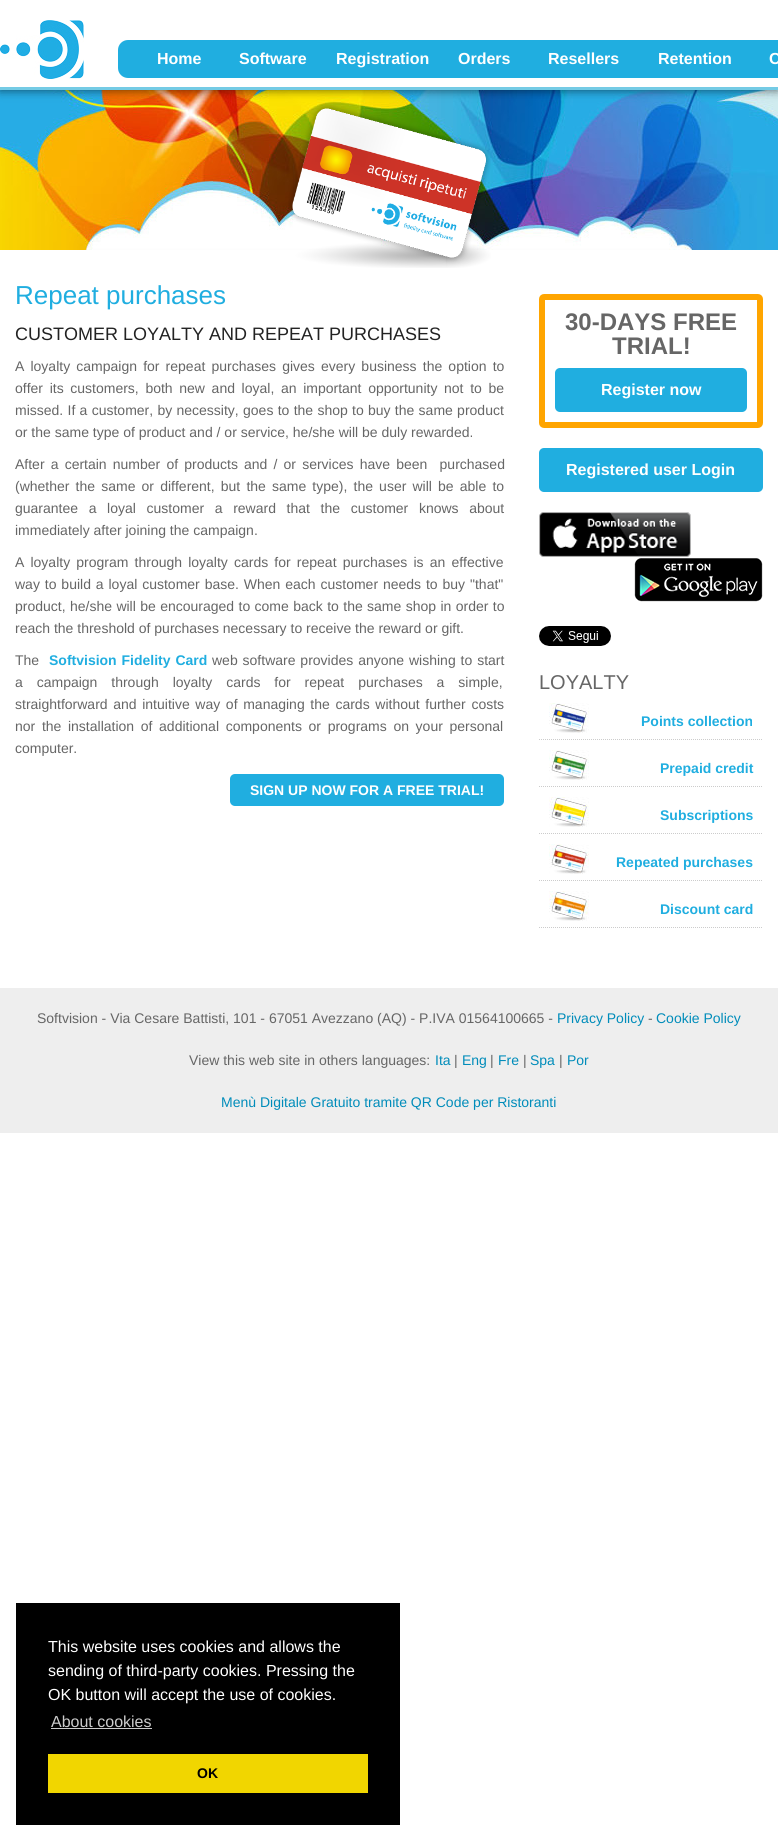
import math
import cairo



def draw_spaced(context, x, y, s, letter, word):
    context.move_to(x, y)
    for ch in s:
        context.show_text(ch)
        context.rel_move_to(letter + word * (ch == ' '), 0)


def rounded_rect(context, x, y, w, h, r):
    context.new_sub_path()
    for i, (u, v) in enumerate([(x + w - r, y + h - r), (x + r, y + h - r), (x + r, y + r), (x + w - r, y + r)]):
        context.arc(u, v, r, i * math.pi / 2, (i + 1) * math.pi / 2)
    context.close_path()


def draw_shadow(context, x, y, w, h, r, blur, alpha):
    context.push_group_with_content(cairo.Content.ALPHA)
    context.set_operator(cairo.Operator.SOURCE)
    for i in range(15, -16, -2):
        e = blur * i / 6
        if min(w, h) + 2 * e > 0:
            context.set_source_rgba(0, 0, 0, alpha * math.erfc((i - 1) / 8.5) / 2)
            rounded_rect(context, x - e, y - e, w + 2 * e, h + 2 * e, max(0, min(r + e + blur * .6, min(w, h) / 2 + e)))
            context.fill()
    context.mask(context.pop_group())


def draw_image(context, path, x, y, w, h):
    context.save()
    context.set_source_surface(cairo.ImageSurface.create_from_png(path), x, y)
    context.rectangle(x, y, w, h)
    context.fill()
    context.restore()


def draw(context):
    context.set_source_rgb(1, 1, 1)
    context.paint()
    draw_image(context, "images/2.png", 0, 90, 778, 160)
    draw_image(context, "images/3.png", 288, 104, 203, 164)
    context.set_source_rgb(0, 0, 0)
    draw_shadow(context, 0, 0, 778, 90, 0, 5, 0.6)
    context.set_source_rgb(1, 1, 1)
    context.rectangle(0, 0, 778, 87)
    context.fill()
    context.set_source_rgb(116 / 255, 203 / 255, 229 / 255)
    context.rectangle(0, 87, 778, 3)
    context.fill()
    draw_image(context, "images/1.png", 0, 20, 84, 59)
    context.set_source_rgb(32 / 255, 174 / 255, 224 / 255)
    rounded_rect(context, 118, 40, 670, 38, 10)
    context.fill()
    rounded_rect(context, 230, 774, 274, 32, 5)
    context.fill()
    rounded_rect(context, 542, 297, 218, 128, 2)
    context.set_source_rgb(1, 165 / 255, 0)
    context.set_line_width(6)
    context.stroke()
    context.set_source_rgb(32 / 255, 174 / 255, 224 / 255)
    rounded_rect(context, 555, 368, 192, 44, 5)
    context.fill()
    rounded_rect(context, 539, 448, 224, 44, 5)
    context.fill()
    draw_image(context, "images/4.png", 539, 512, 152, 45)
    draw_image(context, "images/5.png", 634, 558, 129, 44)
    draw_image(context, "images/6.png", 539, 626, 72, 20)
    context.new_path()
    context.move_to(539, 739.5)
    context.line_to(763, 739.5)
    context.set_source_rgb(204 / 255, 204 / 255, 204 / 255)
    context.set_line_width(1)
    context.set_dash([1, 1])
    context.stroke()
    draw_image(context, "images/7.png", 549, 703, 40, 30)
    context.new_path()
    context.move_to(539, 786.5)
    context.line_to(763, 786.5)
    context.stroke()
    draw_image(context, "images/8.png", 549, 750, 40, 30)
    context.new_path()
    context.move_to(539, 833.5)
    context.line_to(763, 833.5)
    context.stroke()
    draw_image(context, "images/9.png", 549, 797, 40, 30)
    context.new_path()
    context.move_to(539, 880.5)
    context.line_to(763, 880.5)
    context.stroke()
    draw_image(context, "images/10.png", 549, 844, 40, 30)
    context.new_path()
    context.move_to(539, 927.5)
    context.line_to(763, 927.5)
    context.stroke()
    draw_image(context, "images/11.png", 549, 891, 40, 30)
    context.set_source_rgb(238 / 255, 238 / 255, 238 / 255)
    context.rectangle(0, 988, 778, 145)
    context.fill()
    context.set_source_rgb(0, 0, 0)
    context.rectangle(16, 1603, 384, 222)
    context.fill()
    context.set_source_rgb(204 / 255, 204 / 255, 204 / 255)
    context.rectangle(51, 1728, 101, 1)
    context.fill()
    context.set_source_rgb(241 / 255, 214 / 255, 0)
    context.rectangle(48, 1754, 320, 39)
    context.fill()
    context.select_font_face("Liberation Sans", cairo.FontSlant.NORMAL, cairo.FontWeight.BOLD)
    context.set_font_size(16)
    context.set_source_rgb(1, 1, 1)
    context.move_to(157, 64)
    context.show_text("Home")
    context.move_to(239, 64)
    context.show_text("Software")
    context.move_to(336, 64)
    context.show_text("Registration")
    context.move_to(458, 64)
    context.show_text("Orders")
    context.move_to(548, 64)
    context.show_text("Resellers")
    context.move_to(658, 64)
    context.show_text("Retention")
    context.move_to(769, 64)
    context.show_text("C")
    context.select_font_face("Liberation Sans")
    context.set_font_size(26)
    context.set_source_rgb(32 / 255, 174 / 255, 224 / 255)
    context.move_to(15, 304)
    context.show_text("Repeat purchases")
    context.set_font_size(18)
    context.set_source_rgb(34 / 255, 34 / 255, 34 / 255)
    context.move_to(15, 340)
    context.show_text("CUSTOMER LOYALTY AND REPEAT PURCHASES")
    context.set_font_size(14)
    context.set_source_rgb(102 / 255, 102 / 255, 102 / 255)
    draw_spaced(context, 15, 371, "A loyalty campaign for repeat purchases gives every business the option to", 0, 2.25)
    draw_spaced(context, 15, 393, "offer its customers, both new and loyal, an important opportunity not to be", 0, 2.75)
    draw_spaced(context, 15, 415, "missed. If a customer, by necessity, goes to the shop to buy the same product", 0, 0.4)
    context.move_to(15, 437)
    context.show_text("or the same type of product and / or service, he/she will be duly rewarded.")
    draw_spaced(context, 15, 469, "After a certain number of products and / or services have been  purchased", 0, 2.25)
    draw_spaced(context, 15, 491, "(whether the same or different, but the same type), the user will be able to", 0, 2.25)
    draw_spaced(context, 15, 513, "guarantee a loyal customer a reward that the customer knows about", 0, 6.75)
    context.move_to(15, 535)
    context.show_text("immediately after joining the campaign.")
    draw_spaced(context, 15, 567, "A loyalty program through loyalty cards for repeat purchases is an effective", 0, 2.25)
    draw_spaced(context, 15, 589, "way to build a loyal customer base. When each customer needs to buy \"that\"", 0, 1)
    draw_spaced(context, 15, 611, "product, he/she will be encouraged to come back to the same shop in order to", 0, 0.5)
    context.move_to(15, 633)
    context.show_text("reach the threshold of purchases necessary to receive the reward or gift.")
    context.move_to(15, 665)
    context.show_text("The")
    context.select_font_face("Liberation Sans", cairo.FontSlant.NORMAL, cairo.FontWeight.BOLD)
    context.set_source_rgb(32 / 255, 174 / 255, 224 / 255)
    draw_spaced(context, 49, 665, "Softvision Fidelity Card", 0, 1)
    context.select_font_face("Liberation Sans")
    context.set_source_rgb(102 / 255, 102 / 255, 102 / 255)
    draw_spaced(context, 212, 665, "web software provides anyone wishing to start", 0, 1)
    draw_spaced(context, 15, 687, "a campaign through loyalty cards for repeat purchases a simple,", 0, 10)
    draw_spaced(context, 15, 709, "straightforward and intuitive way of managing the cards without further costs", 0, 1.75)
    draw_spaced(context, 15, 731, "nor the installation of additional components or programs on your personal", 0, 2.75)
    context.move_to(15, 753)
    context.show_text("computer.")
    context.select_font_face("Liberation Sans", cairo.FontSlant.NORMAL, cairo.FontWeight.BOLD)
    context.set_source_rgb(1, 1, 1)
    context.move_to(250, 795)
    context.show_text("SIGN UP NOW FOR A FREE TRIAL!")
    context.set_font_size(24)
    context.set_source_rgb(102 / 255, 102 / 255, 102 / 255)
    context.move_to(565, 330)
    context.show_text("30-DAYS FREE")
    context.move_to(612, 354)
    context.show_text("TRIAL!")
    context.set_font_size(16)
    context.set_source_rgb(1, 1, 1)
    context.move_to(601, 395)
    context.show_text("Register now")
    context.move_to(566, 475)
    context.show_text("Registered user Login")
    context.select_font_face("Liberation Sans")
    context.set_font_size(20)
    context.set_source_rgb(102 / 255, 102 / 255, 102 / 255)
    context.move_to(539, 689)
    context.show_text("LOYALTY")
    context.select_font_face("Liberation Sans", cairo.FontSlant.NORMAL, cairo.FontWeight.BOLD)
    context.set_font_size(14)
    context.set_source_rgb(32 / 255, 174 / 255, 224 / 255)
    context.move_to(641, 726)
    context.show_text("Points collection")
    context.move_to(660, 773)
    context.show_text("Prepaid credit")
    context.move_to(660, 820)
    context.show_text("Subscriptions")
    context.move_to(616, 867)
    context.show_text("Repeated purchases")
    context.move_to(660, 914)
    context.show_text("Discount card")
    context.select_font_face("Liberation Sans")
    context.set_source_rgb(102 / 255, 102 / 255, 102 / 255)
    context.move_to(37, 1023)
    context.show_text("Softvision - Via Cesare Battisti, 101 - 67051 Avezzano (AQ) - P.IVA 01564100665 -")
    context.set_source_rgb(0, 140 / 255, 186 / 255)
    context.move_to(557, 1023)
    context.show_text("Privacy Policy")
    context.set_source_rgb(102 / 255, 102 / 255, 102 / 255)
    context.move_to(648, 1023)
    context.show_text("-")
    context.set_source_rgb(0, 140 / 255, 186 / 255)
    context.move_to(656, 1023)
    context.show_text("Cookie Policy")
    context.set_source_rgb(102 / 255, 102 / 255, 102 / 255)
    context.move_to(189, 1065)
    context.show_text("View this web site in others languages:")
    context.set_source_rgb(0, 140 / 255, 186 / 255)
    context.move_to(435, 1065)
    context.show_text("Ita")
    context.set_source_rgb(102 / 255, 102 / 255, 102 / 255)
    context.move_to(454, 1065)
    context.show_text("|")
    context.set_source_rgb(0, 140 / 255, 186 / 255)
    context.move_to(462, 1065)
    context.show_text("Eng")
    context.set_source_rgb(102 / 255, 102 / 255, 102 / 255)
    context.move_to(490, 1065)
    context.show_text("|")
    context.set_source_rgb(0, 140 / 255, 186 / 255)
    context.move_to(498, 1065)
    context.show_text("Fre")
    context.set_source_rgb(102 / 255, 102 / 255, 102 / 255)
    context.move_to(523, 1065)
    context.show_text("|")
    context.set_source_rgb(0, 140 / 255, 186 / 255)
    context.move_to(530, 1065)
    context.show_text("Spa")
    context.set_source_rgb(102 / 255, 102 / 255, 102 / 255)
    context.move_to(559, 1065)
    context.show_text("|")
    context.set_source_rgb(0, 140 / 255, 186 / 255)
    context.move_to(567, 1065)
    context.show_text("Por")
    context.move_to(221, 1107)
    context.show_text("Menù Digitale Gratuito tramite QR Code per Ristoranti")
    context.set_font_size(16)
    context.set_source_rgb(1, 1, 1)
    context.move_to(48, 1652)
    context.show_text("This website uses cookies and allows the")
    context.move_to(48, 1676)
    context.show_text("sending of third-party cookies. Pressing the")
    context.move_to(48, 1700)
    context.show_text("OK button will accept the use of cookies.")
    context.set_source_rgb(204 / 255, 204 / 255, 204 / 255)
    context.move_to(51, 1727)
    context.show_text("About cookies")
    context.select_font_face("Liberation Sans", cairo.FontSlant.NORMAL, cairo.FontWeight.BOLD)
    context.set_font_size(14)
    context.set_source_rgb(0, 0, 0)
    context.move_to(197, 1778)
    context.show_text("OK")


surface = cairo.ImageSurface(cairo.Format.RGB24, 778, 1841)
context = cairo.Context(surface)
options = cairo.FontOptions()
options.set_hint_metrics(cairo.HintMetrics.OFF)
options.set_hint_style(cairo.HintStyle.NONE)
context.set_font_options(options)
context.set_miter_limit(4)
draw(context)
surface.write_to_png("out.png")
